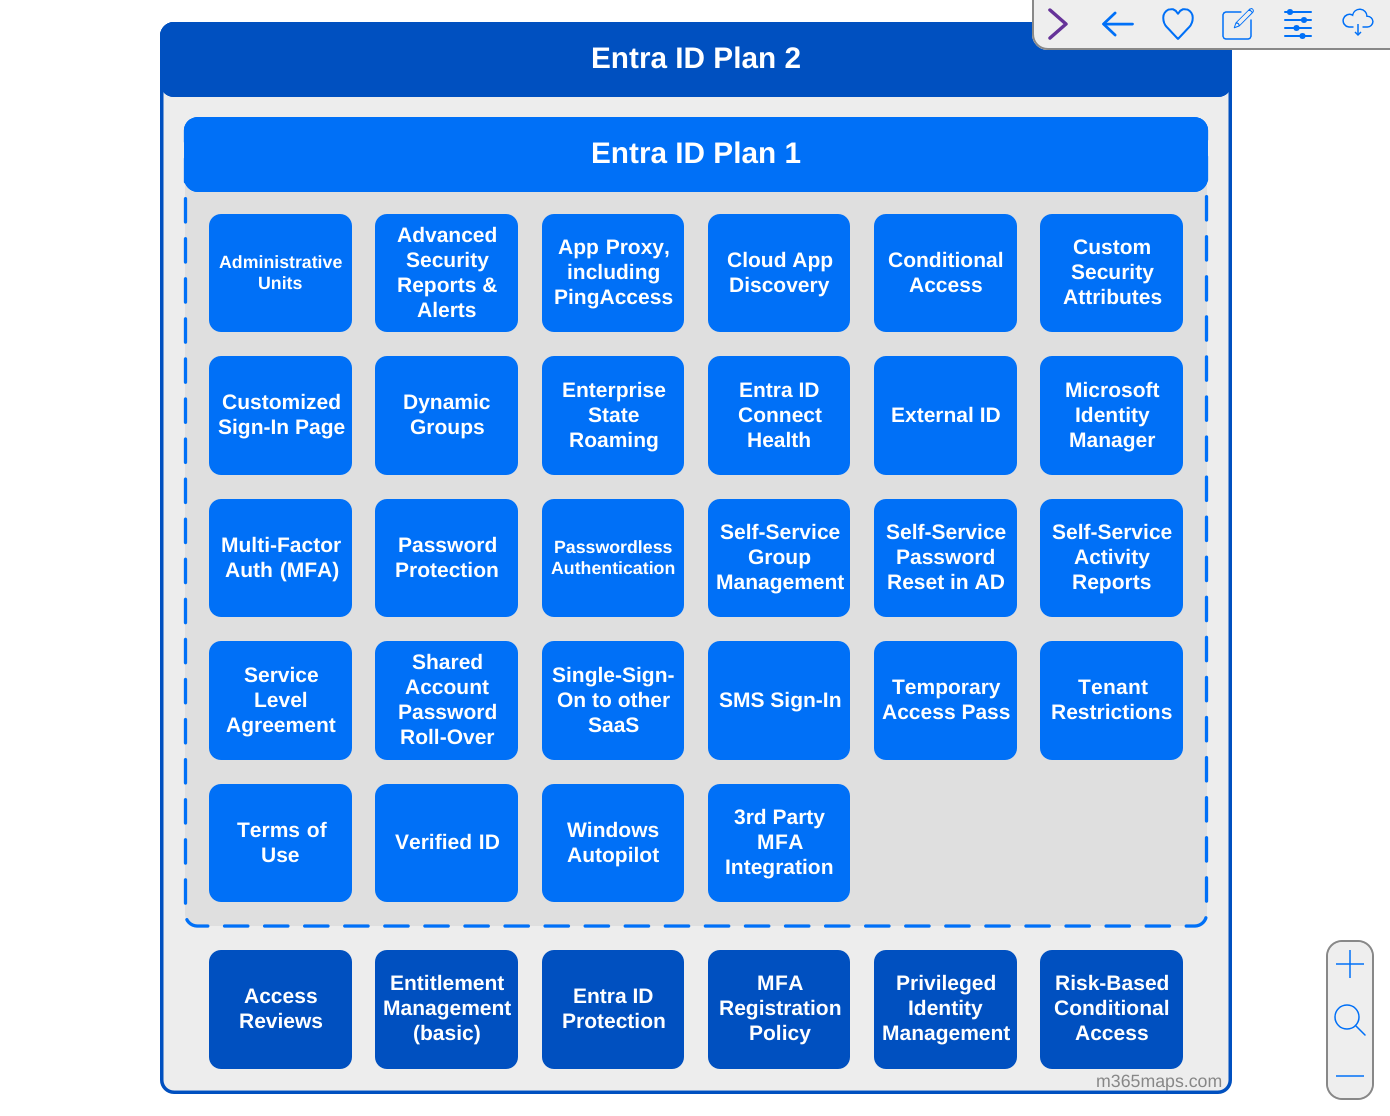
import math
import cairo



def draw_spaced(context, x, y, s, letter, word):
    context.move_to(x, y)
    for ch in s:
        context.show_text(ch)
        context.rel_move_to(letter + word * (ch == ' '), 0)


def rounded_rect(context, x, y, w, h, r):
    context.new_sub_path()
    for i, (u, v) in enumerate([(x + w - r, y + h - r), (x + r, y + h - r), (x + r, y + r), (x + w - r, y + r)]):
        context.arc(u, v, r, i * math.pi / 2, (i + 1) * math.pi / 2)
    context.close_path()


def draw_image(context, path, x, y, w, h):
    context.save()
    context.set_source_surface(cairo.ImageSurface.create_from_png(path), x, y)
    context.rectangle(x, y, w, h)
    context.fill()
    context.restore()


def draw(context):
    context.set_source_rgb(1, 1, 1)
    context.paint()
    context.set_source_rgb(238 / 255, 238 / 255, 238 / 255)
    rounded_rect(context, 1327, 941, 46, 158, 15)
    context.fill_preserve()
    context.set_source_rgb(136 / 255, 136 / 255, 136 / 255)
    context.stroke()
    context.set_source_rgb(238 / 255, 238 / 255, 238 / 255)
    context.new_path()
    context.move_to(1344, 942)
    context.line_to(1356, 942)
    context.curve_to(1365, 942, 1372, 949, 1372, 958)
    context.line_to(1372, 978)
    context.curve_to(1372, 982.5, 1368.5, 986, 1364, 986)
    context.line_to(1336, 986)
    context.curve_to(1331.5, 986, 1328, 982.5, 1328, 978)
    context.line_to(1328, 958)
    context.curve_to(1328, 949, 1335, 942, 1344, 942)
    context.close_path()
    context.fill()
    draw_image(context, "images/8.png", 1336, 950, 28, 28)
    draw_image(context, "images/9.png", 1334, 1004, 32, 32)
    context.new_path()
    context.move_to(1336, 1054)
    context.line_to(1364, 1054)
    context.curve_to(1368.5, 1054, 1372, 1057.5, 1372, 1062)
    context.line_to(1372, 1082)
    context.curve_to(1372, 1091, 1365, 1098, 1356, 1098)
    context.line_to(1344, 1098)
    context.curve_to(1335, 1098, 1328, 1091, 1328, 1082)
    context.line_to(1328, 1062)
    context.curve_to(1328, 1057.5, 1331.5, 1054, 1336, 1054)
    context.close_path()
    context.fill()
    context.set_source_rgb(60 / 255, 144 / 255, 245 / 255)
    context.rectangle(1336, 1075, 28, 2)
    context.fill()
    context.select_font_face("Liberation Sans")
    context.set_font_size(17.75)
    context.set_source_rgb(127 / 255, 127 / 255, 127 / 255)
    context.move_to(1096, 1087)
    context.show_text("m365maps.com")
    draw_image(context, "images/7.png", 160, 22, 1072, 1072)
    context.set_source_rgb(238 / 255, 238 / 255, 238 / 255)
    context.new_path()
    context.move_to(1032, 0)
    context.line_to(1390, 0)
    context.line_to(1390, 50)
    context.line_to(1048, 50)
    context.curve_to(1039, 50, 1032, 43, 1032, 34)
    context.close_path()
    context.fill()
    context.set_source_rgb(136 / 255, 136 / 255, 136 / 255)
    context.set_fill_rule(cairo.FillRule.EVEN_ODD)
    context.new_path()
    context.move_to(1032, 0)
    context.line_to(1390, 0)
    context.line_to(1390, 50)
    context.line_to(1048, 50)
    context.curve_to(1039, 50, 1032, 43, 1032, 34)
    context.close_path()
    context.move_to(1034, 0)
    context.line_to(1390, 0)
    context.line_to(1390, 48)
    context.line_to(1048, 48)
    context.curve_to(1040, 48, 1034, 42, 1034, 34)
    context.close_path()
    context.fill()
    draw_image(context, "images/1.png", 1048, 8, 20, 32)
    draw_image(context, "images/6.png", 1342, 8, 32, 28)
    draw_image(context, "images/5.png", 1284, 9, 28, 30)
    draw_image(context, "images/4.png", 1222, 8, 32, 32)
    draw_image(context, "images/3.png", 1162, 8, 32, 32)
    draw_image(context, "images/2.png", 1102, 11, 32, 26)
    context.select_font_face("Liberation Sans", cairo.FontSlant.NORMAL, cairo.FontWeight.BOLD)
    context.set_font_size(21)
    context.set_source_rgb(1, 1, 1)
    context.move_to(1051, 719)
    context.show_text("Restrictions")
    draw_spaced(context, 1078, 694, "Tenant", 0.25, 0)
    context.move_to(567, 862)
    context.show_text("Autopilot")
    context.move_to(567, 837)
    context.show_text("Windows")
    draw_spaced(context, 395, 849, "Verified ID", 0, 1)
    context.set_font_size(17.75)
    context.move_to(551, 574)
    context.show_text("Authentication")
    context.move_to(554, 553)
    context.show_text("Passwordless")
    context.set_font_size(21)
    context.move_to(1063, 304)
    context.show_text("Attributes")
    context.move_to(1071, 279)
    context.show_text("Security")
    context.move_to(1073, 254)
    context.show_text("Custom")
    context.move_to(226, 732)
    context.show_text("Agreement")
    context.move_to(254, 707)
    context.show_text("Level")
    context.move_to(244, 682)
    context.show_text("Service")
    context.move_to(1072, 589)
    context.show_text("Reports")
    context.move_to(1074, 564)
    context.show_text("Activity")
    context.move_to(1052, 539)
    context.show_text("Self-Service")
    context.move_to(218, 434)
    context.show_text("Sign-In Page")
    context.move_to(222, 409)
    context.show_text("Customized")
    context.move_to(882, 719)
    context.show_text("Access Pass")
    context.move_to(892, 694)
    context.show_text("Temporary")
    context.move_to(719, 707)
    context.show_text("SMS Sign-In")
    context.move_to(410, 434)
    context.show_text("Groups")
    context.move_to(403, 409)
    context.show_text("Dynamic")
    context.set_font_size(17.75)
    context.move_to(258, 289)
    context.show_text("Units")
    context.move_to(219, 268)
    context.show_text("Administrative")
    context.set_font_size(21)
    context.move_to(725, 874)
    context.show_text("Integration")
    draw_spaced(context, 757, 849, "MFA", 0.5, 0)
    context.move_to(734, 824)
    context.show_text("3rd Party")
    context.move_to(1069, 447)
    context.show_text("Manager")
    context.move_to(1075, 422)
    context.show_text("Identity")
    context.move_to(1065, 397)
    context.show_text("Microsoft")
    context.move_to(395, 577)
    context.show_text("Protection")
    context.move_to(398, 552)
    context.show_text("Password")
    context.move_to(261, 862)
    context.show_text("Use")
    draw_spaced(context, 237, 837, "Terms of", 0, 1)
    context.move_to(569, 447)
    context.show_text("Roaming")
    context.move_to(588, 422)
    context.show_text("State")
    context.move_to(562, 397)
    context.show_text("Enterprise")
    context.move_to(891, 422)
    context.show_text("External ID")
    context.move_to(909, 292)
    context.show_text("Access")
    context.move_to(888, 267)
    context.show_text("Conditional")
    context.move_to(716, 589)
    context.show_text("Management")
    context.move_to(748, 564)
    context.show_text("Group")
    context.move_to(720, 539)
    context.show_text("Self-Service")
    context.move_to(887, 589)
    context.show_text("Reset in AD")
    context.move_to(896, 564)
    context.show_text("Password")
    context.move_to(886, 539)
    context.show_text("Self-Service")
    context.move_to(400, 744)
    context.show_text("Roll-Over")
    context.move_to(398, 719)
    context.show_text("Password")
    context.move_to(405, 694)
    context.show_text("Account")
    context.move_to(412, 669)
    context.show_text("Shared")
    context.move_to(729, 292)
    context.show_text("Discovery")
    context.move_to(727, 267)
    context.show_text("Cloud App")
    context.move_to(747, 447)
    context.show_text("Health")
    context.move_to(738, 422)
    context.show_text("Connect")
    context.move_to(739, 397)
    context.show_text("Entra ID")
    draw_spaced(context, 225, 577, "Auth (MFA)", 0, 1)
    context.move_to(221, 552)
    context.show_text("Multi-Factor")
    context.move_to(554, 304)
    context.show_text("PingAccess")
    context.move_to(567, 279)
    context.show_text("including")
    draw_spaced(context, 558, 254, "App Proxy,", 0, 1)
    context.move_to(588, 732)
    context.show_text("SaaS")
    context.move_to(557, 707)
    context.show_text("On to other")
    context.move_to(552, 682)
    context.show_text("Single-Sign-")
    context.move_to(417, 317)
    context.show_text("Alerts")
    context.move_to(397, 292)
    context.show_text("Reports &")
    context.move_to(406, 267)
    context.show_text("Security")
    context.move_to(397, 242)
    context.show_text("Advanced")
    context.move_to(749, 1040)
    context.show_text("Policy")
    context.move_to(719, 1015)
    context.show_text("Registration")
    draw_spaced(context, 757, 990, "MFA", 0.5, 0)
    context.move_to(882, 1040)
    context.show_text("Management")
    context.move_to(908, 1015)
    context.show_text("Identity")
    context.move_to(896, 990)
    context.show_text("Privileged")
    context.move_to(1075, 1040)
    context.show_text("Access")
    context.move_to(1054, 1015)
    context.show_text("Conditional")
    context.move_to(1055, 990)
    context.show_text("Risk-Based")
    context.move_to(413, 1040)
    context.show_text("(basic)")
    context.move_to(383, 1015)
    context.show_text("Management")
    context.move_to(390, 990)
    context.show_text("Entitlement")
    context.move_to(562, 1028)
    context.show_text("Protection")
    context.move_to(573, 1003)
    context.show_text("Entra ID")
    context.move_to(239, 1028)
    context.show_text("Reviews")
    context.move_to(244, 1003)
    context.show_text("Access")
    context.set_font_size(29.75)
    context.move_to(591, 163)
    context.show_text("Entra ID Plan 1")
    context.move_to(591, 68)
    context.show_text("Entra ID Plan 2")


surface = cairo.ImageSurface(cairo.Format.RGB24, 1390, 1116)
context = cairo.Context(surface)
options = cairo.FontOptions()
options.set_hint_metrics(cairo.HintMetrics.OFF)
options.set_hint_style(cairo.HintStyle.NONE)
context.set_font_options(options)
context.set_miter_limit(4)
draw(context)
surface.write_to_png("out.png")
